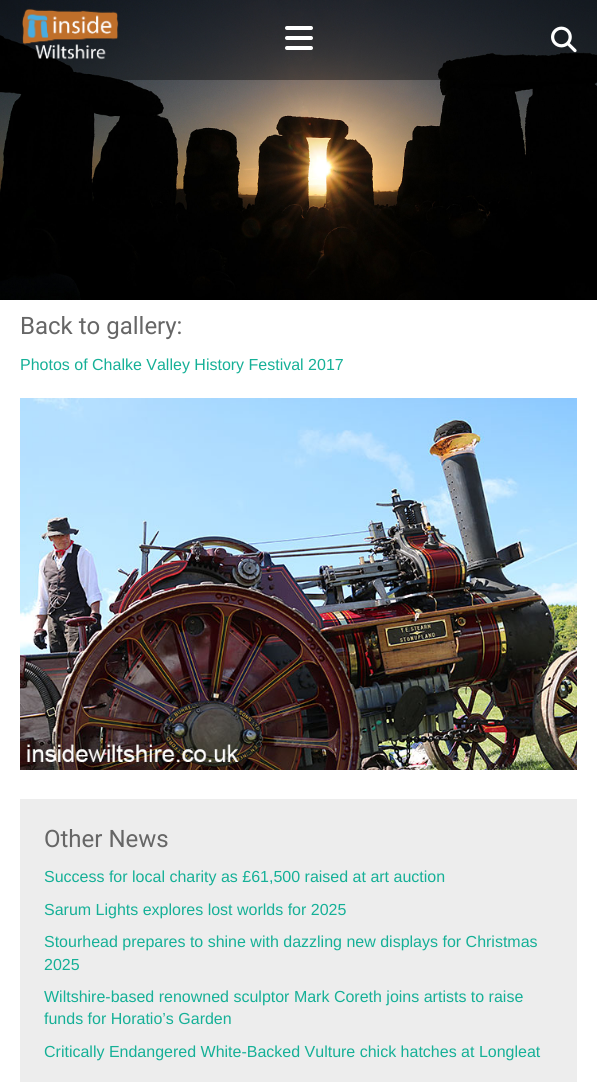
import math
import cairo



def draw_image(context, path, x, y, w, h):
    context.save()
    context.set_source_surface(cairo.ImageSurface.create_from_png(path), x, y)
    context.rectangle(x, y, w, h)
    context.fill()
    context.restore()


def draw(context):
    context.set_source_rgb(1, 1, 1)
    context.paint()
    draw_image(context, "images/1.png", 0, 0, 597, 300)
    context.set_source_rgba(0, 0, 0, 0.4)
    context.rectangle(0, 0, 597, 80)
    context.fill()
    draw_image(context, "images/2.png", 22, 8, 97, 52)
    draw_image(context, "images/3.png", 285, 26, 28, 24)
    draw_image(context, "images/4.png", 551, 26, 26, 27)
    draw_image(context, "images/5.png", 20, 398, 557, 372)
    context.set_source_rgb(237 / 255, 237 / 255, 237 / 255)
    context.rectangle(20, 799, 557, 283)
    context.fill()
    context.select_font_face("Roboto")
    context.set_font_size(24)
    context.set_source_rgb(102 / 255, 102 / 255, 102 / 255)
    context.move_to(20, 334)
    context.show_text("Back to gallery:")
    context.select_font_face("Liberation Sans")
    context.set_font_size(16)
    context.set_source_rgb(21 / 255, 176 / 255, 151 / 255)
    context.move_to(20, 370)
    context.show_text("Photos of Chalke Valley History Festival 2017")
    context.select_font_face("Roboto")
    context.set_font_size(24)
    context.set_source_rgb(102 / 255, 102 / 255, 102 / 255)
    context.move_to(44, 847)
    context.show_text("Other News")
    context.select_font_face("Liberation Sans")
    context.set_font_size(16)
    context.set_source_rgb(21 / 255, 176 / 255, 151 / 255)
    context.move_to(44, 882)
    context.show_text("Success for local charity as £61,500 raised at art auction")
    context.move_to(44, 915)
    context.show_text("Sarum Lights explores lost worlds for 2025")
    context.move_to(44, 947)
    context.show_text("Stourhead prepares to shine with dazzling new displays for Christmas")
    context.move_to(44, 970)
    context.show_text("2025")
    context.move_to(44, 1002)
    context.show_text("Wiltshire-based renowned sculptor Mark Coreth joins artists to raise")
    context.move_to(44, 1024)
    context.show_text("funds for Horatio’s Garden")
    context.move_to(44, 1057)
    context.show_text("Critically Endangered White-Backed Vulture chick hatches at Longleat")


surface = cairo.ImageSurface(cairo.Format.RGB24, 597, 1082)
context = cairo.Context(surface)
options = cairo.FontOptions()
options.set_hint_metrics(cairo.HintMetrics.OFF)
options.set_hint_style(cairo.HintStyle.NONE)
context.set_font_options(options)
context.set_miter_limit(4)
draw(context)
surface.write_to_png("out.png")
